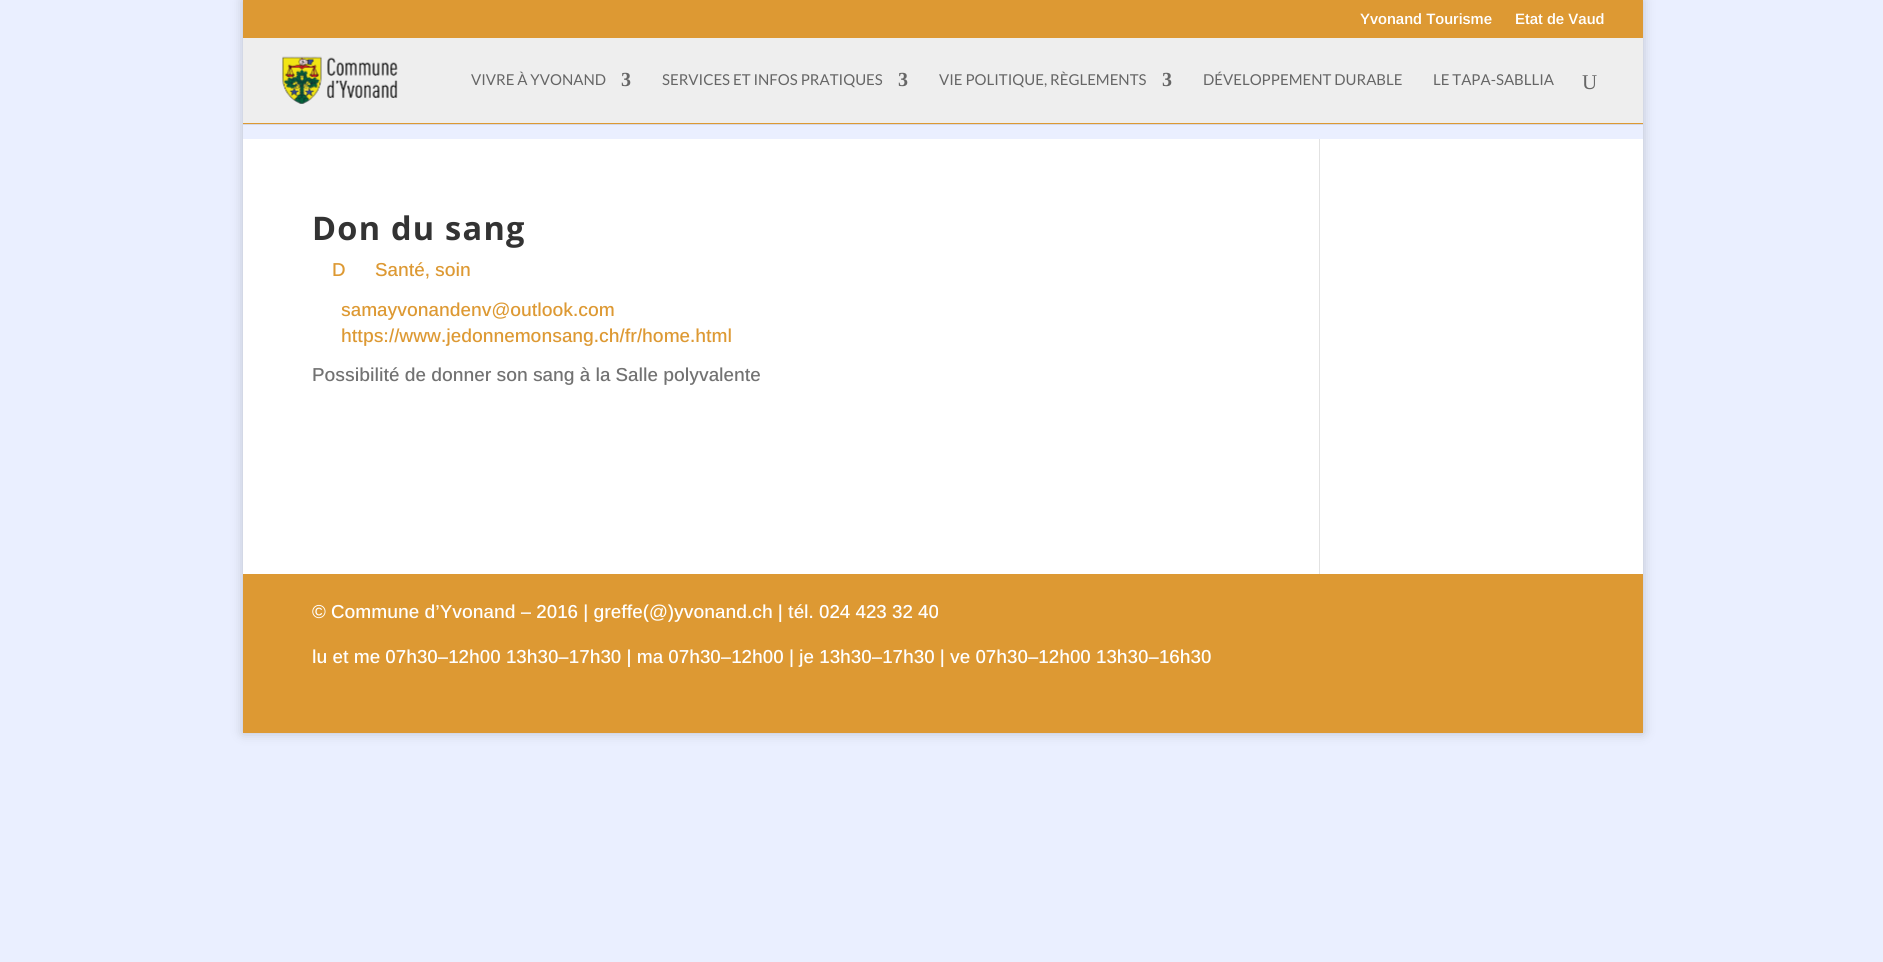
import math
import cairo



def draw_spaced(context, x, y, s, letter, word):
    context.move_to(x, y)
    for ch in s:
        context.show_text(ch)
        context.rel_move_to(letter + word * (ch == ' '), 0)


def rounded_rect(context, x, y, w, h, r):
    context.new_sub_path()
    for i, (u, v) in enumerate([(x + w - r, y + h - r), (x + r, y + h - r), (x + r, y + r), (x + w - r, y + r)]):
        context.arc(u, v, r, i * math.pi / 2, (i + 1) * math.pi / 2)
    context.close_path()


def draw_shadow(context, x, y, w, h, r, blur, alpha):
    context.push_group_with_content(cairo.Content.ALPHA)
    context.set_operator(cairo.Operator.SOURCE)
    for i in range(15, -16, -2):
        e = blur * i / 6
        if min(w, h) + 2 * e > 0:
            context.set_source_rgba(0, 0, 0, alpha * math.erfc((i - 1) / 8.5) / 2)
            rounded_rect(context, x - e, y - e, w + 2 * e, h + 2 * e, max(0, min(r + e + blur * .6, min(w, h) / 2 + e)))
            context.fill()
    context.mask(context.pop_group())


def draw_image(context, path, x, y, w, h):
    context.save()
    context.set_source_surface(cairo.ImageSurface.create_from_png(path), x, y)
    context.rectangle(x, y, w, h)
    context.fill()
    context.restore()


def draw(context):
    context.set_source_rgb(234 / 255, 239 / 255, 1)
    context.paint()
    context.save()
    context.set_fill_rule(cairo.FillRule.EVEN_ODD)
    context.new_path()
    context.move_to(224, 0)
    context.line_to(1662, 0)
    context.line_to(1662, 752)
    context.line_to(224, 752)
    context.close_path()
    context.move_to(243, 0)
    context.line_to(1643, 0)
    context.line_to(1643, 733)
    context.line_to(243, 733)
    context.close_path()
    context.clip()
    context.set_source_rgb(0, 0, 0)
    draw_shadow(context, 243, 0, 1400, 733, 0, 6, 0.2)
    context.restore()
    context.set_source_rgb(221 / 255, 153 / 255, 51 / 255)
    context.rectangle(243, 0, 1400, 38)
    context.fill()
    context.set_source_rgba(0, 0, 0, 0.1)
    context.new_path()
    context.move_to(243, 124)
    context.line_to(243, 125)
    context.line_to(1643, 125)
    context.line_to(1643, 39)
    context.line_to(1642, 39)
    context.line_to(1642, 124)
    context.close_path()
    context.fill()
    context.set_source_rgb(238 / 255, 238 / 255, 238 / 255)
    context.rectangle(243, 38, 1400, 85)
    context.fill()
    context.set_source_rgb(221 / 255, 153 / 255, 51 / 255)
    context.rectangle(243, 123, 1400, 1)
    context.fill()
    draw_image(context, "images/1.png", 282, 56, 116, 48)
    context.set_source_rgb(1, 1, 1)
    context.rectangle(243, 139, 1400, 435)
    context.fill()
    context.set_source_rgb(226 / 255, 226 / 255, 226 / 255)
    context.rectangle(1319, 139, 1, 435)
    context.fill()
    context.set_source_rgb(221 / 255, 153 / 255, 51 / 255)
    context.rectangle(243, 574, 1400, 159)
    context.fill()
    context.select_font_face("Arimo SemiBold")
    context.set_font_size(15)
    context.set_source_rgb(1, 1, 1)
    context.move_to(1360, 24)
    context.show_text("Yvonand Tourisme")
    context.move_to(1515, 24)
    context.show_text("Etat de Vaud")
    context.select_font_face("Lato")
    context.set_source_rgb(102 / 255, 102 / 255, 102 / 255)
    context.move_to(471, 85)
    context.show_text("VIVRE À YVONAND")
    context.select_font_face("Liberation Serif", cairo.FontSlant.NORMAL, cairo.FontWeight.BOLD)
    context.set_font_size(20)
    context.move_to(621, 86)
    context.show_text("3")
    context.select_font_face("Lato")
    context.set_font_size(15)
    context.move_to(662, 85)
    context.show_text("SERVICES ET INFOS PRATIQUES")
    context.select_font_face("Liberation Serif", cairo.FontSlant.NORMAL, cairo.FontWeight.BOLD)
    context.set_font_size(20)
    context.move_to(898, 86)
    context.show_text("3")
    context.select_font_face("Lato")
    context.set_font_size(15)
    context.move_to(939, 85)
    context.show_text("VIE POLITIQUE, RÈGLEMENTS")
    context.select_font_face("Liberation Serif", cairo.FontSlant.NORMAL, cairo.FontWeight.BOLD)
    context.set_font_size(20)
    context.move_to(1162, 86)
    context.show_text("3")
    context.select_font_face("Lato")
    context.set_font_size(15)
    context.move_to(1203, 85)
    context.show_text("DÉVELOPPEMENT DURABLE")
    context.move_to(1433, 85)
    context.show_text("LE TAPA-SABLLIA")
    context.select_font_face("Liberation Serif")
    context.set_font_size(21)
    context.move_to(1582, 89)
    context.show_text("U")
    context.select_font_face("Open Sans", cairo.FontSlant.NORMAL, cairo.FontWeight.BOLD)
    context.set_font_size(32.5)
    context.set_source_rgb(51 / 255, 51 / 255, 51 / 255)
    draw_spaced(context, 312, 240, "Don du sang", 1.25, 0)
    context.select_font_face("Arimo Medium")
    context.set_font_size(18.75)
    context.set_source_rgb(221 / 255, 153 / 255, 51 / 255)
    context.move_to(332, 276)
    context.show_text("D")
    context.move_to(375, 276)
    context.show_text("Santé, soin")
    context.move_to(341, 316)
    context.show_text("samayvonandenv@outlook.com")
    context.move_to(341, 342)
    context.show_text("https://www.jedonnemonsang.ch/fr/home.html")
    context.set_source_rgb(114 / 255, 114 / 255, 114 / 255)
    context.move_to(312, 381)
    context.show_text("Possibilité de donner son sang à la Salle polyvalente")
    context.set_source_rgb(1, 1, 1)
    context.move_to(312, 618)
    context.show_text("© Commune d’Yvonand – 2016 | greffe(@)yvonand.ch | tél. 024 423 32 40")
    context.move_to(312, 663)
    context.show_text("lu et me 07h30–12h00 13h30–17h30 | ma 07h30–12h00 | je 13h30–17h30 | ve 07h30–12h00 13h30–16h30")


surface = cairo.ImageSurface(cairo.Format.RGB24, 1883, 962)
context = cairo.Context(surface)
options = cairo.FontOptions()
options.set_hint_metrics(cairo.HintMetrics.OFF)
options.set_hint_style(cairo.HintStyle.NONE)
context.set_font_options(options)
context.set_miter_limit(4)
draw(context)
surface.write_to_png("out.png")
